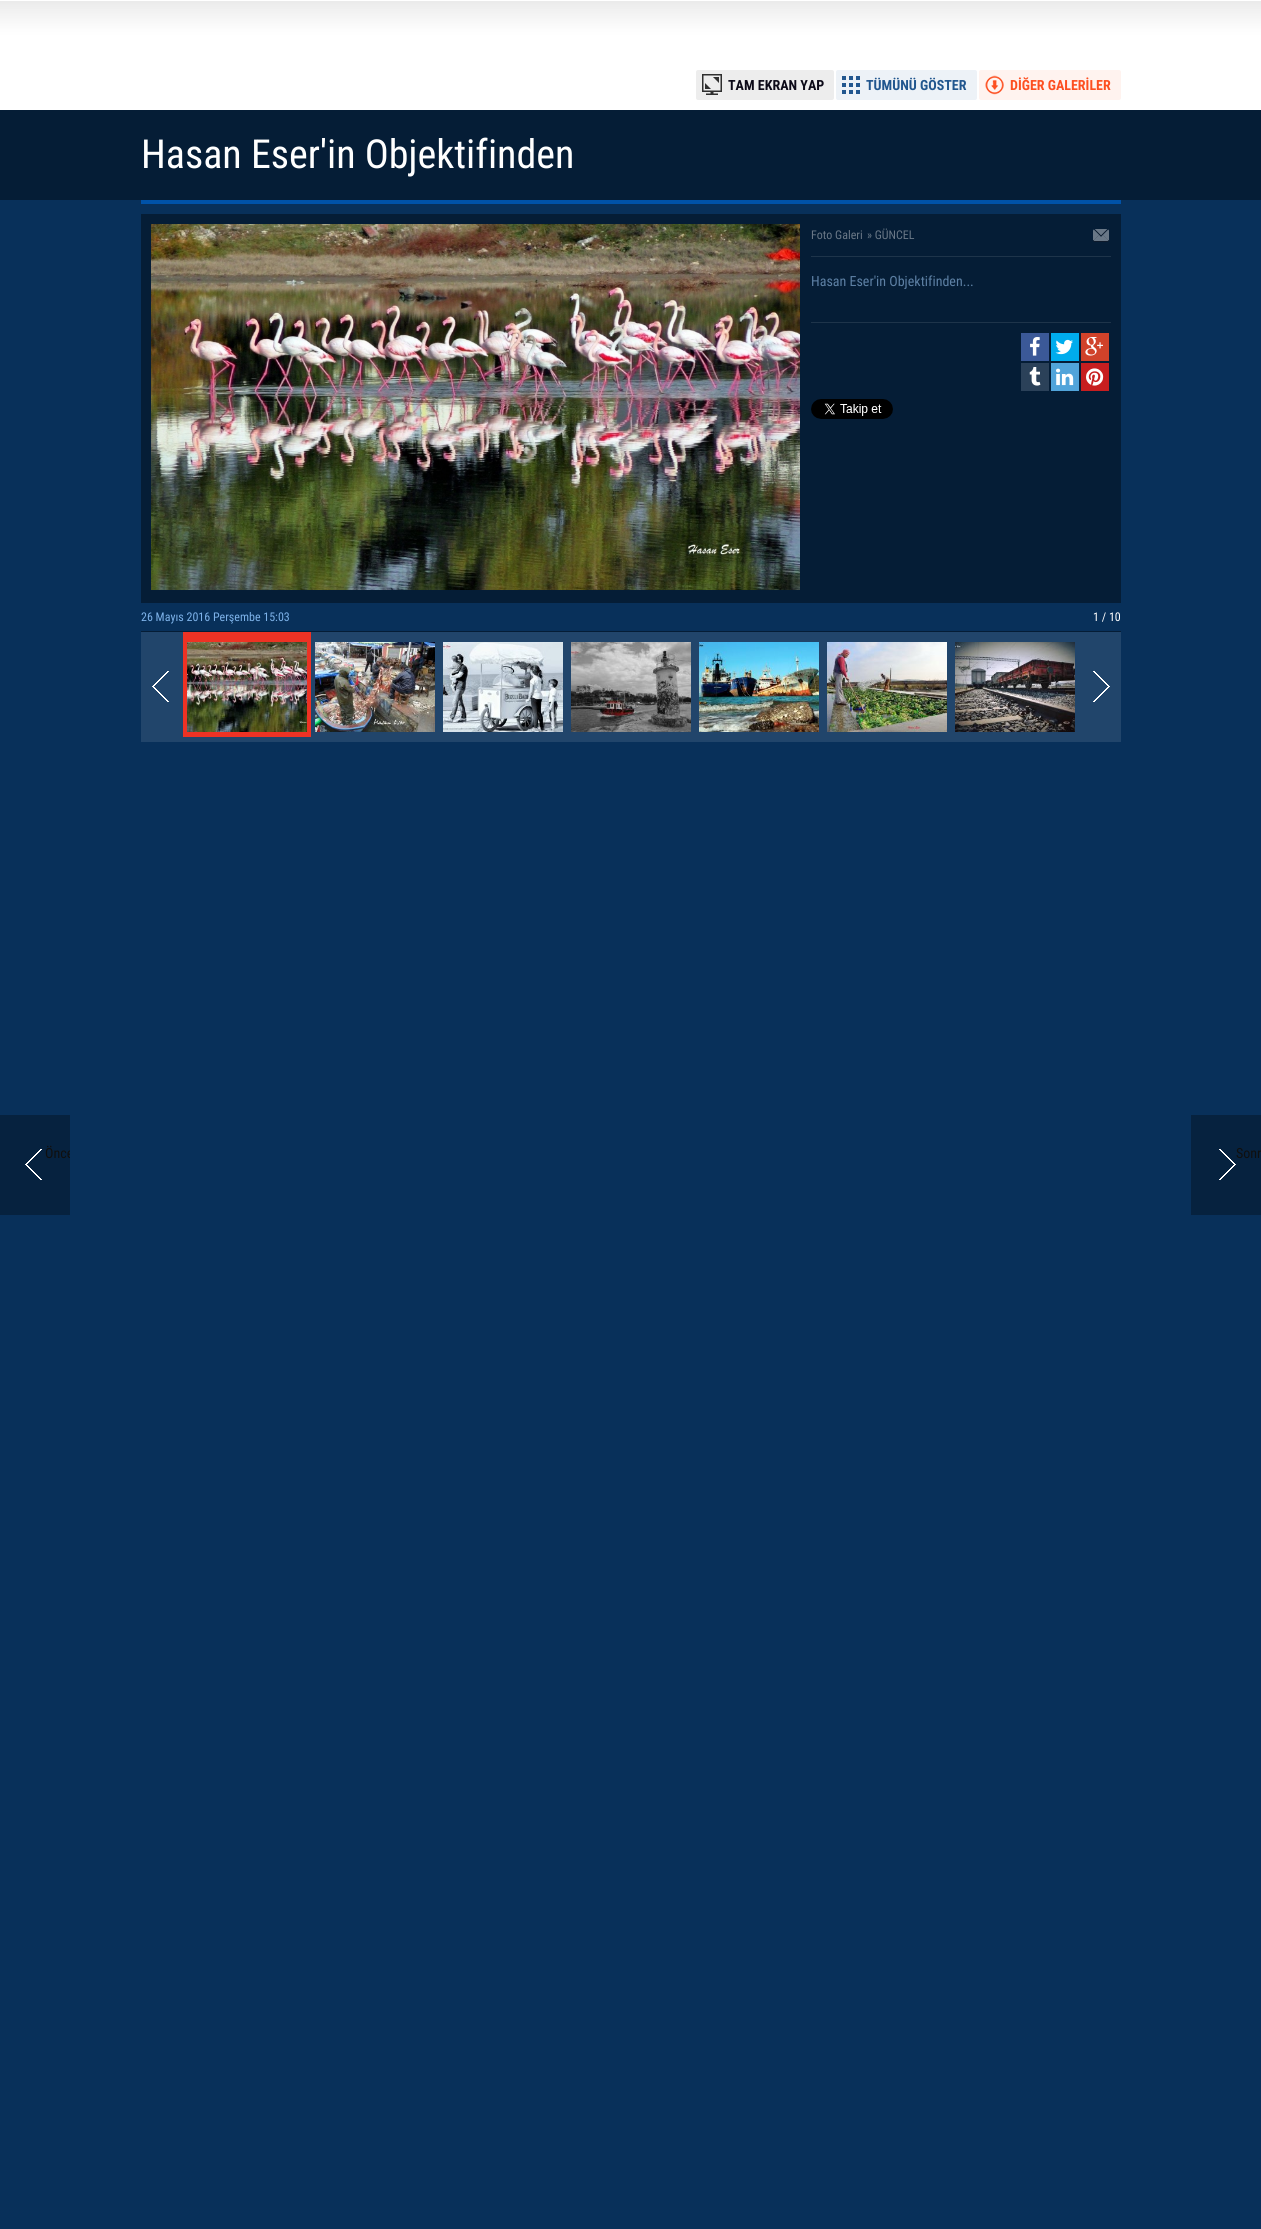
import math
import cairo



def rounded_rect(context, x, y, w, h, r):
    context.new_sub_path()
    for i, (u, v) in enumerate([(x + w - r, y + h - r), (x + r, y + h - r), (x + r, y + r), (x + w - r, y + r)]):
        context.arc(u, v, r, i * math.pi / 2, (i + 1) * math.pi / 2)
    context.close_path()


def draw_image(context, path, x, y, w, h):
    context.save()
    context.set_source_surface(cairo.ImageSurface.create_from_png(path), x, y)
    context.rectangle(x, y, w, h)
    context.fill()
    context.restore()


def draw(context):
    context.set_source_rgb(8 / 255, 48 / 255, 90 / 255)
    context.paint()
    draw_image(context, "images/1.png", 0, 0, 1261, 200)
    context.set_source_rgb(237 / 255, 237 / 255, 237 / 255)
    rounded_rect(context, 696, 70, 138, 30, 2)
    context.fill()
    draw_image(context, "images/2.png", 702, 74, 20, 21)
    context.set_source_rgb(237 / 255, 242 / 255, 247 / 255)
    rounded_rect(context, 836, 70, 141, 30, 2)
    context.fill()
    draw_image(context, "images/3.png", 842, 76, 18, 18)
    context.set_source_rgb(1, 243 / 255, 239 / 255)
    rounded_rect(context, 979, 70, 142, 30, 2)
    context.fill()
    draw_image(context, "images/4.png", 985, 75, 19, 20)
    context.set_source_rgb(0, 82 / 255, 168 / 255)
    context.rectangle(141, 200, 980, 4)
    context.fill()
    context.set_source_rgb(5 / 255, 29 / 255, 54 / 255)
    context.rectangle(141, 214, 980, 389)
    context.fill()
    draw_image(context, "images/5.png", 151, 224, 649, 366)
    draw_image(context, "images/6.png", 1093, 229, 16, 13)
    context.set_source_rgb(30 / 255, 52 / 255, 74 / 255)
    context.rectangle(811, 256, 300, 1)
    context.fill()
    context.rectangle(811, 322, 300, 1)
    context.fill()
    context.set_source_rgb(59 / 255, 89 / 255, 152 / 255)
    context.rectangle(1021, 333, 28, 28)
    context.fill()
    draw_image(context, "images/7.png", 1030, 337, 10, 19)
    context.set_source_rgb(0, 172 / 255, 237 / 255)
    context.rectangle(1051, 333, 28, 28)
    context.fill()
    draw_image(context, "images/8.png", 1055, 339, 18, 16)
    context.set_source_rgb(208 / 255, 66 / 255, 42 / 255)
    context.rectangle(1081, 333, 28, 28)
    context.fill()
    draw_image(context, "images/9.png", 1085, 337, 18, 19)
    context.set_source_rgb(43 / 255, 65 / 255, 89 / 255)
    context.rectangle(1021, 363, 28, 28)
    context.fill()
    draw_image(context, "images/10.png", 1029, 367, 12, 19)
    context.set_source_rgb(81 / 255, 164 / 255, 218 / 255)
    context.rectangle(1051, 363, 28, 28)
    context.fill()
    draw_image(context, "images/11.png", 1056, 368, 18, 18)
    context.set_source_rgb(199 / 255, 30 / 255, 32 / 255)
    context.rectangle(1081, 363, 28, 28)
    context.fill()
    draw_image(context, "images/12.png", 1086, 368, 18, 18)
    draw_image(context, "images/13.png", 811, 399, 82, 20)
    context.set_source_rgb(33 / 255, 69 / 255, 107 / 255)
    context.rectangle(141, 632, 980, 110)
    context.fill()
    context.set_source_rgb(5 / 255, 29 / 255, 54 / 255)
    context.rectangle(141, 631, 980, 1)
    context.fill()
    draw_image(context, "images/14.png", 152, 671, 17, 31)
    context.set_source_rgb(238 / 255, 50 / 255, 36 / 255)
    context.rectangle(183, 632, 128, 105)
    context.fill()
    draw_image(context, "images/15.png", 187, 642, 120, 90)
    draw_image(context, "images/16.png", 315, 642, 120, 90)
    draw_image(context, "images/17.png", 443, 642, 120, 90)
    draw_image(context, "images/18.png", 571, 642, 120, 90)
    draw_image(context, "images/19.png", 699, 642, 120, 90)
    draw_image(context, "images/20.png", 827, 642, 120, 90)
    draw_image(context, "images/21.png", 955, 642, 120, 90)
    draw_image(context, "images/22.png", 1093, 671, 17, 31)
    context.set_source_rgb(6 / 255, 34 / 255, 63 / 255)
    context.rectangle(0, 1115, 70, 100)
    context.fill()
    draw_image(context, "images/23.png", 25, 1149, 17, 31)
    context.rectangle(1191, 1115, 70, 100)
    context.fill()
    draw_image(context, "images/24.png", 1219, 1149, 17, 31)
    context.select_font_face("Roboto Condensed", cairo.FontSlant.NORMAL, cairo.FontWeight.BOLD)
    context.set_font_size(14)
    context.set_source_rgb(12 / 255, 10 / 255, 24 / 255)
    context.move_to(728, 90)
    context.show_text("TAM EKRAN YAP")
    context.set_source_rgb(33 / 255, 86 / 255, 142 / 255)
    context.move_to(866, 90)
    context.show_text("TÜMÜNÜ GÖSTER")
    context.set_source_rgb(253 / 255, 79 / 255, 32 / 255)
    context.move_to(1010, 90)
    context.show_text("DİĞER GALERİLER")
    context.select_font_face("Roboto Condensed")
    context.set_font_size(40)
    context.set_source_rgb(1, 1, 1)
    context.move_to(141, 168)
    context.show_text("Hasan Eser'in Objektifinden")
    context.set_font_size(12)
    context.set_source_rgb(105 / 255, 119 / 255, 134 / 255)
    context.move_to(811, 239)
    context.show_text("Foto Galeri")
    context.move_to(867, 239)
    context.show_text("» GÜNCEL")
    context.set_font_size(14)
    context.set_source_rgb(93 / 255, 128 / 255, 164 / 255)
    context.move_to(811, 286)
    context.show_text("Hasan Eser'in Objektifinden...")
    context.set_font_size(12)
    context.set_source_rgb(125 / 255, 178 / 255, 233 / 255)
    context.move_to(141, 621)
    context.show_text("26 Mayıs 2016 Perşembe 15:03")
    context.set_source_rgb(1, 1, 1)
    context.move_to(1093, 621)
    context.show_text("1 / 10")
    context.save()
    context.rectangle(0, 1115, 70, 100)
    context.clip()
    context.set_font_size(14)
    context.set_source_rgb(15 / 255, 15 / 255, 15 / 255)
    context.move_to(45, 1158)
    context.show_text("Önce")
    context.restore()
    context.set_font_size(14)
    context.set_source_rgb(15 / 255, 15 / 255, 15 / 255)
    context.move_to(1236, 1158)
    context.show_text("Sonr")


surface = cairo.ImageSurface(cairo.Format.RGB24, 1261, 2229)
context = cairo.Context(surface)
options = cairo.FontOptions()
options.set_hint_metrics(cairo.HintMetrics.OFF)
options.set_hint_style(cairo.HintStyle.NONE)
context.set_font_options(options)
context.set_miter_limit(4)
draw(context)
surface.write_to_png("out.png")
